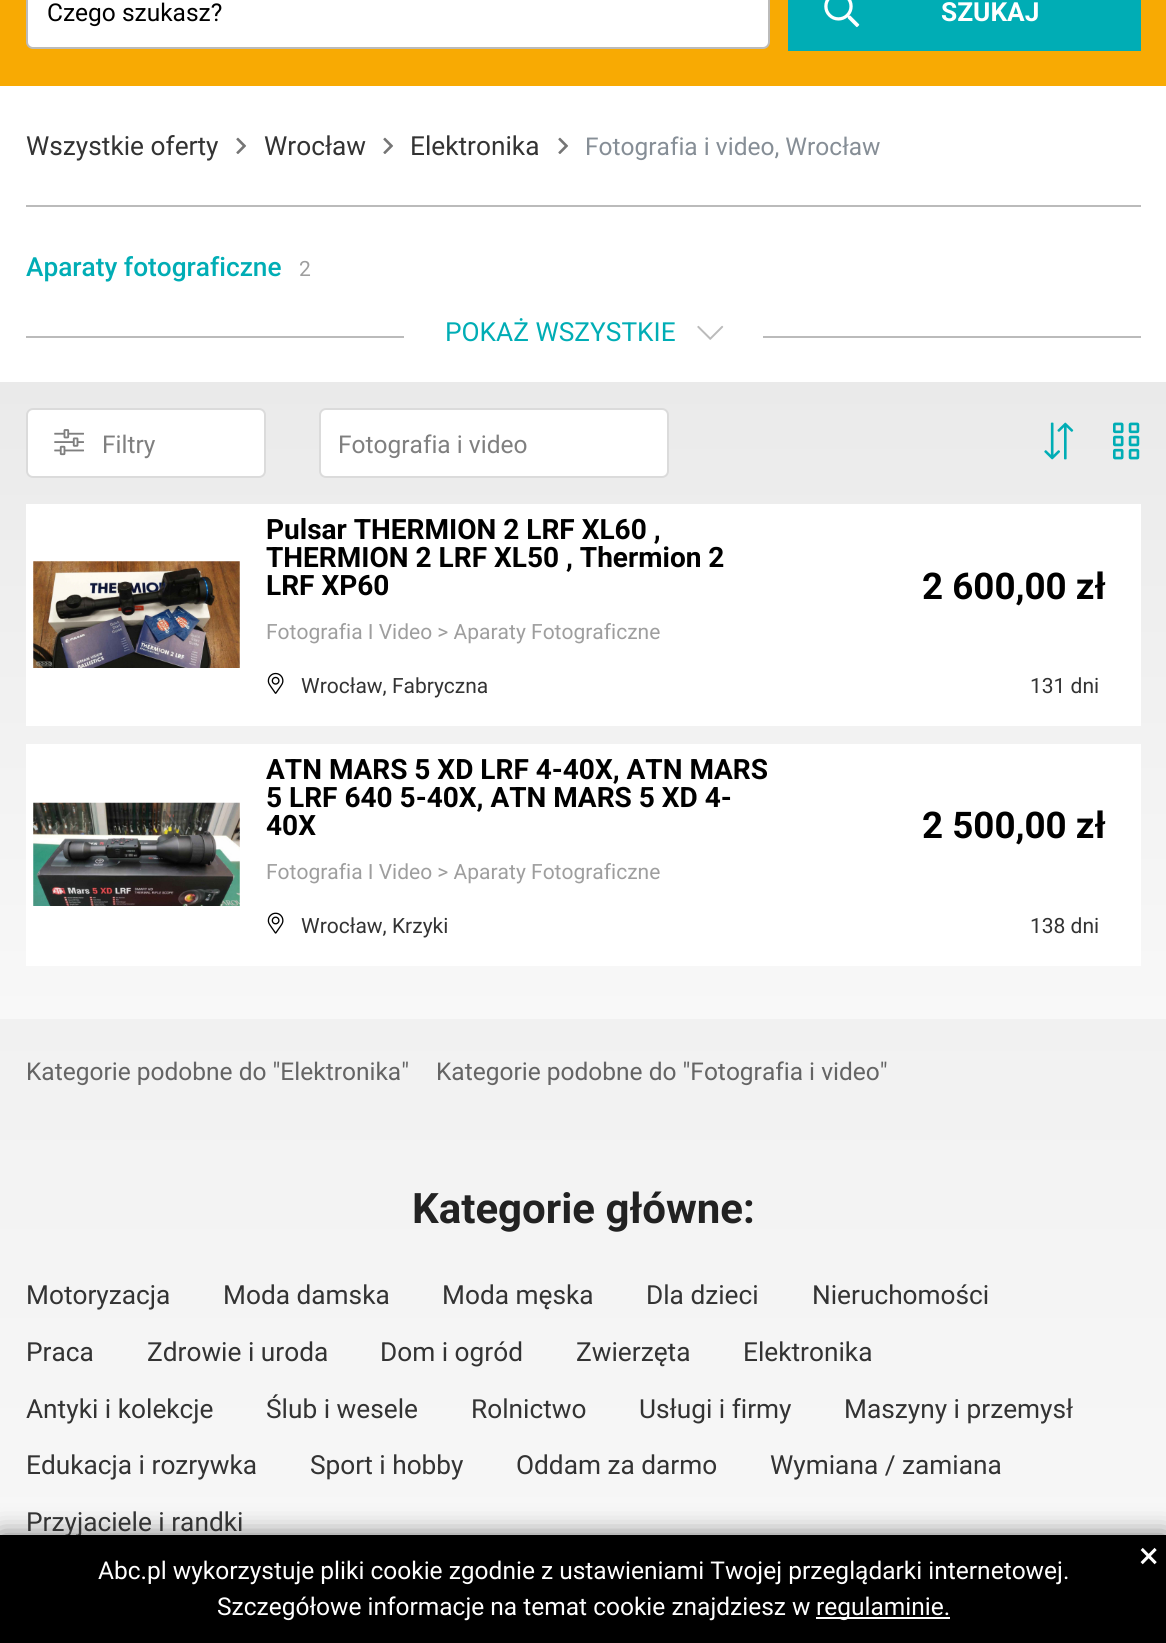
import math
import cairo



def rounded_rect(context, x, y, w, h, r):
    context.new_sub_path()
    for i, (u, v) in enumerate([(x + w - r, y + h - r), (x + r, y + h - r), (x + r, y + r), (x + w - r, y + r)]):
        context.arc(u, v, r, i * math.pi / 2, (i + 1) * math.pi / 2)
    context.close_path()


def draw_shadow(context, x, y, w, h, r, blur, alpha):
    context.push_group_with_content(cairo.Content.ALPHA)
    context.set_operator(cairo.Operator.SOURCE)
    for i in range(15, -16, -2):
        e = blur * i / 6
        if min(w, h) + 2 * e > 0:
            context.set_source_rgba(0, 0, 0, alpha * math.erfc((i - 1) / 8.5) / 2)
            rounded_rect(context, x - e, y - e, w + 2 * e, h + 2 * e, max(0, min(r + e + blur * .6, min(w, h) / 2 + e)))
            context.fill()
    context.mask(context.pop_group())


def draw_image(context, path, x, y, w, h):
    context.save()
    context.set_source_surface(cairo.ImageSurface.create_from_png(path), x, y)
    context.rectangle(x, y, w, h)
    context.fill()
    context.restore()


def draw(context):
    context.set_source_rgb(1, 1, 1)
    context.paint()
    context.set_source_rgb(248 / 255, 170 / 255, 3 / 255)
    context.rectangle(0, 0, 1166, 86)
    context.fill()
    context.set_source_rgb(1, 1, 1)
    rounded_rect(context, 27, -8, 742, 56, 6)
    context.fill_preserve()
    context.set_source_rgb(187 / 255, 187 / 255, 187 / 255)
    context.stroke()
    context.set_source_rgb(0, 173 / 255, 181 / 255)
    context.rectangle(788, 0, 353, 51)
    context.fill()
    draw_image(context, "images/1.png", 824, 0, 36, 28)
    draw_image(context, "images/2.png", 236, 137, 11, 17)
    draw_image(context, "images/2.png", 383, 137, 11, 17)
    draw_image(context, "images/2.png", 558, 137, 11, 17)
    context.set_source_rgb(187 / 255, 187 / 255, 187 / 255)
    context.rectangle(26, 205, 1115, 2)
    context.fill()
    context.rectangle(26, 336, 1115, 2)
    context.fill()
    context.set_source_rgb(1, 1, 1)
    context.rectangle(404, 336, 359, 2)
    context.fill()
    draw_image(context, "images/3.png", 697, 325, 27, 15)
    gradient = cairo.LinearGradient(584, 381, 584, 1631)
    gradient.add_color_stop_rgba(0, 234 / 255, 234 / 255, 234 / 255, 1)
    gradient.add_color_stop_rgba(1, 248 / 255, 248 / 255, 248 / 255, 1)
    context.set_source(gradient)
    context.rectangle(0, 1019, 1166, 516)
    context.fill()
    gradient = cairo.LinearGradient(584, 381, 584, 1019)
    gradient.add_color_stop_rgba(0, 234 / 255, 234 / 255, 234 / 255, 1)
    gradient.add_color_stop_rgba(1, 248 / 255, 248 / 255, 248 / 255, 1)
    context.set_source(gradient)
    context.rectangle(0, 382, 1166, 637)
    context.fill()
    context.set_source_rgb(1, 1, 1)
    rounded_rect(context, 27, 409, 238, 68, 6)
    context.fill_preserve()
    context.set_source_rgb(219 / 255, 219 / 255, 219 / 255)
    context.stroke()
    draw_image(context, "images/4.png", 54, 429, 30, 27)
    context.set_source_rgb(1, 1, 1)
    rounded_rect(context, 320, 409, 348, 68, 6)
    context.fill_preserve()
    context.set_source_rgb(219 / 255, 219 / 255, 219 / 255)
    context.stroke()
    draw_image(context, "images/5.png", 1044, 422, 30, 38)
    draw_image(context, "images/6.png", 1113, 422, 27, 38)
    context.set_source_rgb(1, 1, 1)
    context.rectangle(26, 504, 1115, 222)
    context.fill()
    draw_image(context, "images/7.png", 33, 561, 207, 107)
    draw_image(context, "images/8.png", 267, 672, 17, 22)
    context.rectangle(26, 744, 1115, 222)
    context.fill()
    draw_image(context, "images/9.png", 33, 802, 207, 104)
    draw_image(context, "images/10.png", 267, 912, 17, 22)
    context.set_source_rgb(0, 0, 0)
    draw_shadow(context, 0, 1535, 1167, 108, 0, 13, 0.5)
    context.select_font_face("Roboto")
    context.set_font_size(24.5)
    context.set_source_rgb(0, 0, 0)
    context.move_to(47, 21)
    context.show_text("Czego szukasz?")
    context.select_font_face("Roboto", cairo.FontSlant.NORMAL, cairo.FontWeight.BOLD)
    context.set_font_size(26.25)
    context.set_source_rgb(1, 1, 1)
    context.move_to(941, 21)
    context.show_text("SZUKAJ")
    context.select_font_face("Roboto")
    context.set_source_rgb(51 / 255, 51 / 255, 51 / 255)
    context.move_to(26, 155)
    context.show_text("Wszystkie oferty")
    context.move_to(264, 155)
    context.show_text("Wrocław")
    context.move_to(410, 155)
    context.show_text("Elektronika")
    context.set_font_size(24.5)
    context.set_source_rgb(134 / 255, 142 / 255, 150 / 255)
    context.move_to(585, 155)
    context.show_text("Fotografia i video, Wrocław")
    context.select_font_face("Roboto Medium")
    context.set_font_size(26.25)
    context.set_source_rgb(0, 173 / 255, 181 / 255)
    context.move_to(26, 276)
    context.show_text("Aparaty fotograficzne")
    context.select_font_face("Roboto")
    context.set_font_size(21)
    context.set_source_rgb(158 / 255, 158 / 255, 158 / 255)
    context.move_to(299, 276)
    context.show_text("2")
    context.set_font_size(26.25)
    context.set_source_rgb(0, 173 / 255, 181 / 255)
    context.move_to(445, 341)
    context.show_text("POKAŻ WSZYSTKIE")
    context.set_font_size(24.5)
    context.set_source_rgb(127 / 255, 127 / 255, 127 / 255)
    context.move_to(102, 453)
    context.show_text("Filtry")
    context.move_to(338, 453)
    context.show_text("Fotografia i video")
    context.select_font_face("Roboto", cairo.FontSlant.NORMAL, cairo.FontWeight.BOLD)
    context.set_font_size(28)
    context.set_source_rgb(0, 0, 0)
    context.move_to(266, 539)
    context.show_text("Pulsar THERMION 2 LRF XL60 ,")
    context.move_to(266, 567)
    context.show_text("THERMION 2 LRF XL50 , Thermion 2")
    context.move_to(266, 595)
    context.show_text("LRF XP60")
    context.select_font_face("Roboto")
    context.set_font_size(21)
    context.set_source_rgb(158 / 255, 158 / 255, 158 / 255)
    context.move_to(266, 639)
    context.show_text("Fotografia I Video > Aparaty Fotograficzne")
    context.set_source_rgb(51 / 255, 51 / 255, 51 / 255)
    context.move_to(301, 693)
    context.show_text("Wrocław, Fabryczna")
    context.move_to(1030, 693)
    context.show_text("131 dni")
    context.select_font_face("Roboto", cairo.FontSlant.NORMAL, cairo.FontWeight.BOLD)
    context.set_font_size(36.75)
    context.set_source_rgb(0, 0, 0)
    context.move_to(922, 599)
    context.show_text("2 600,00 zł")
    context.set_font_size(28)
    context.move_to(266, 779)
    context.show_text("ATN MARS 5 XD LRF 4-40X, ATN MARS")
    context.move_to(266, 807)
    context.show_text("5 LRF 640 5-40X, ATN MARS 5 XD 4-")
    context.move_to(266, 835)
    context.show_text("40X")
    context.select_font_face("Roboto")
    context.set_font_size(21)
    context.set_source_rgb(158 / 255, 158 / 255, 158 / 255)
    context.move_to(266, 879)
    context.show_text("Fotografia I Video > Aparaty Fotograficzne")
    context.set_source_rgb(51 / 255, 51 / 255, 51 / 255)
    context.move_to(301, 933)
    context.show_text("Wrocław, Krzyki")
    context.move_to(1030, 933)
    context.show_text("138 dni")
    context.select_font_face("Roboto", cairo.FontSlant.NORMAL, cairo.FontWeight.BOLD)
    context.set_font_size(36.75)
    context.set_source_rgb(0, 0, 0)
    context.move_to(922, 838)
    context.show_text("2 500,00 zł")
    context.select_font_face("Roboto")
    context.set_font_size(24.5)
    context.set_source_rgb(100 / 255, 100 / 255, 100 / 255)
    context.move_to(26, 1080)
    context.show_text("Kategorie podobne do \"Elektronika\"")
    context.move_to(436, 1080)
    context.show_text("Kategorie podobne do \"Fotografia i video\"")
    context.select_font_face("Roboto", cairo.FontSlant.NORMAL, cairo.FontWeight.BOLD)
    context.set_font_size(42)
    context.set_source_rgb(34 / 255, 34 / 255, 34 / 255)
    context.move_to(412, 1223)
    context.show_text("Kategorie główne:")
    context.select_font_face("Roboto")
    context.set_font_size(26.25)
    context.set_source_rgb(51 / 255, 51 / 255, 51 / 255)
    context.move_to(26, 1304)
    context.show_text("Motoryzacja")
    context.move_to(223, 1304)
    context.show_text("Moda damska")
    context.move_to(442, 1304)
    context.show_text("Moda męska")
    context.move_to(646, 1304)
    context.show_text("Dla dzieci")
    context.move_to(812, 1304)
    context.show_text("Nieruchomości")
    context.move_to(26, 1361)
    context.show_text("Praca")
    context.move_to(147, 1361)
    context.show_text("Zdrowie i uroda")
    context.move_to(380, 1361)
    context.show_text("Dom i ogród")
    context.move_to(576, 1361)
    context.show_text("Zwierzęta")
    context.move_to(743, 1361)
    context.show_text("Elektronika")
    context.move_to(26, 1418)
    context.show_text("Antyki i kolekcje")
    context.move_to(266, 1418)
    context.show_text("Ślub i wesele")
    context.move_to(471, 1418)
    context.show_text("Rolnictwo")
    context.move_to(639, 1418)
    context.show_text("Usługi i firmy")
    context.move_to(844, 1418)
    context.show_text("Maszyny i przemysł")
    context.move_to(26, 1474)
    context.show_text("Edukacja i rozrywka")
    context.move_to(310, 1474)
    context.show_text("Sport i hobby")
    context.move_to(516, 1474)
    context.show_text("Oddam za darmo")
    context.move_to(770, 1474)
    context.show_text("Wymiana / zamiana")
    context.move_to(26, 1531)
    context.show_text("Przyjaciele i randki")
    context.set_source_rgb(0, 0, 0)
    context.rectangle(0, 1535, 1166, 108)
    context.fill()
    context.set_font_size(36.75)
    context.set_source_rgb(1, 1, 1)
    context.move_to(1139, 1568)
    context.show_text("×")
    context.set_font_size(24.5)
    context.move_to(98, 1579)
    context.show_text("Abc.pl wykorzystuje pliki cookie zgodnie z ustawieniami Twojej przeglądarki internetowej.")
    context.move_to(217, 1615)
    context.show_text("Szczegółowe informacje na temat cookie znajdziesz w")
    context.rectangle(816, 1617, 134, 2)
    context.fill()
    context.move_to(816, 1615)
    context.show_text("regulaminie.")


surface = cairo.ImageSurface(cairo.Format.RGB24, 1166, 1643)
context = cairo.Context(surface)
options = cairo.FontOptions()
options.set_hint_metrics(cairo.HintMetrics.OFF)
options.set_hint_style(cairo.HintStyle.NONE)
context.set_font_options(options)
context.set_miter_limit(4)
draw(context)
surface.write_to_png("out.png")
